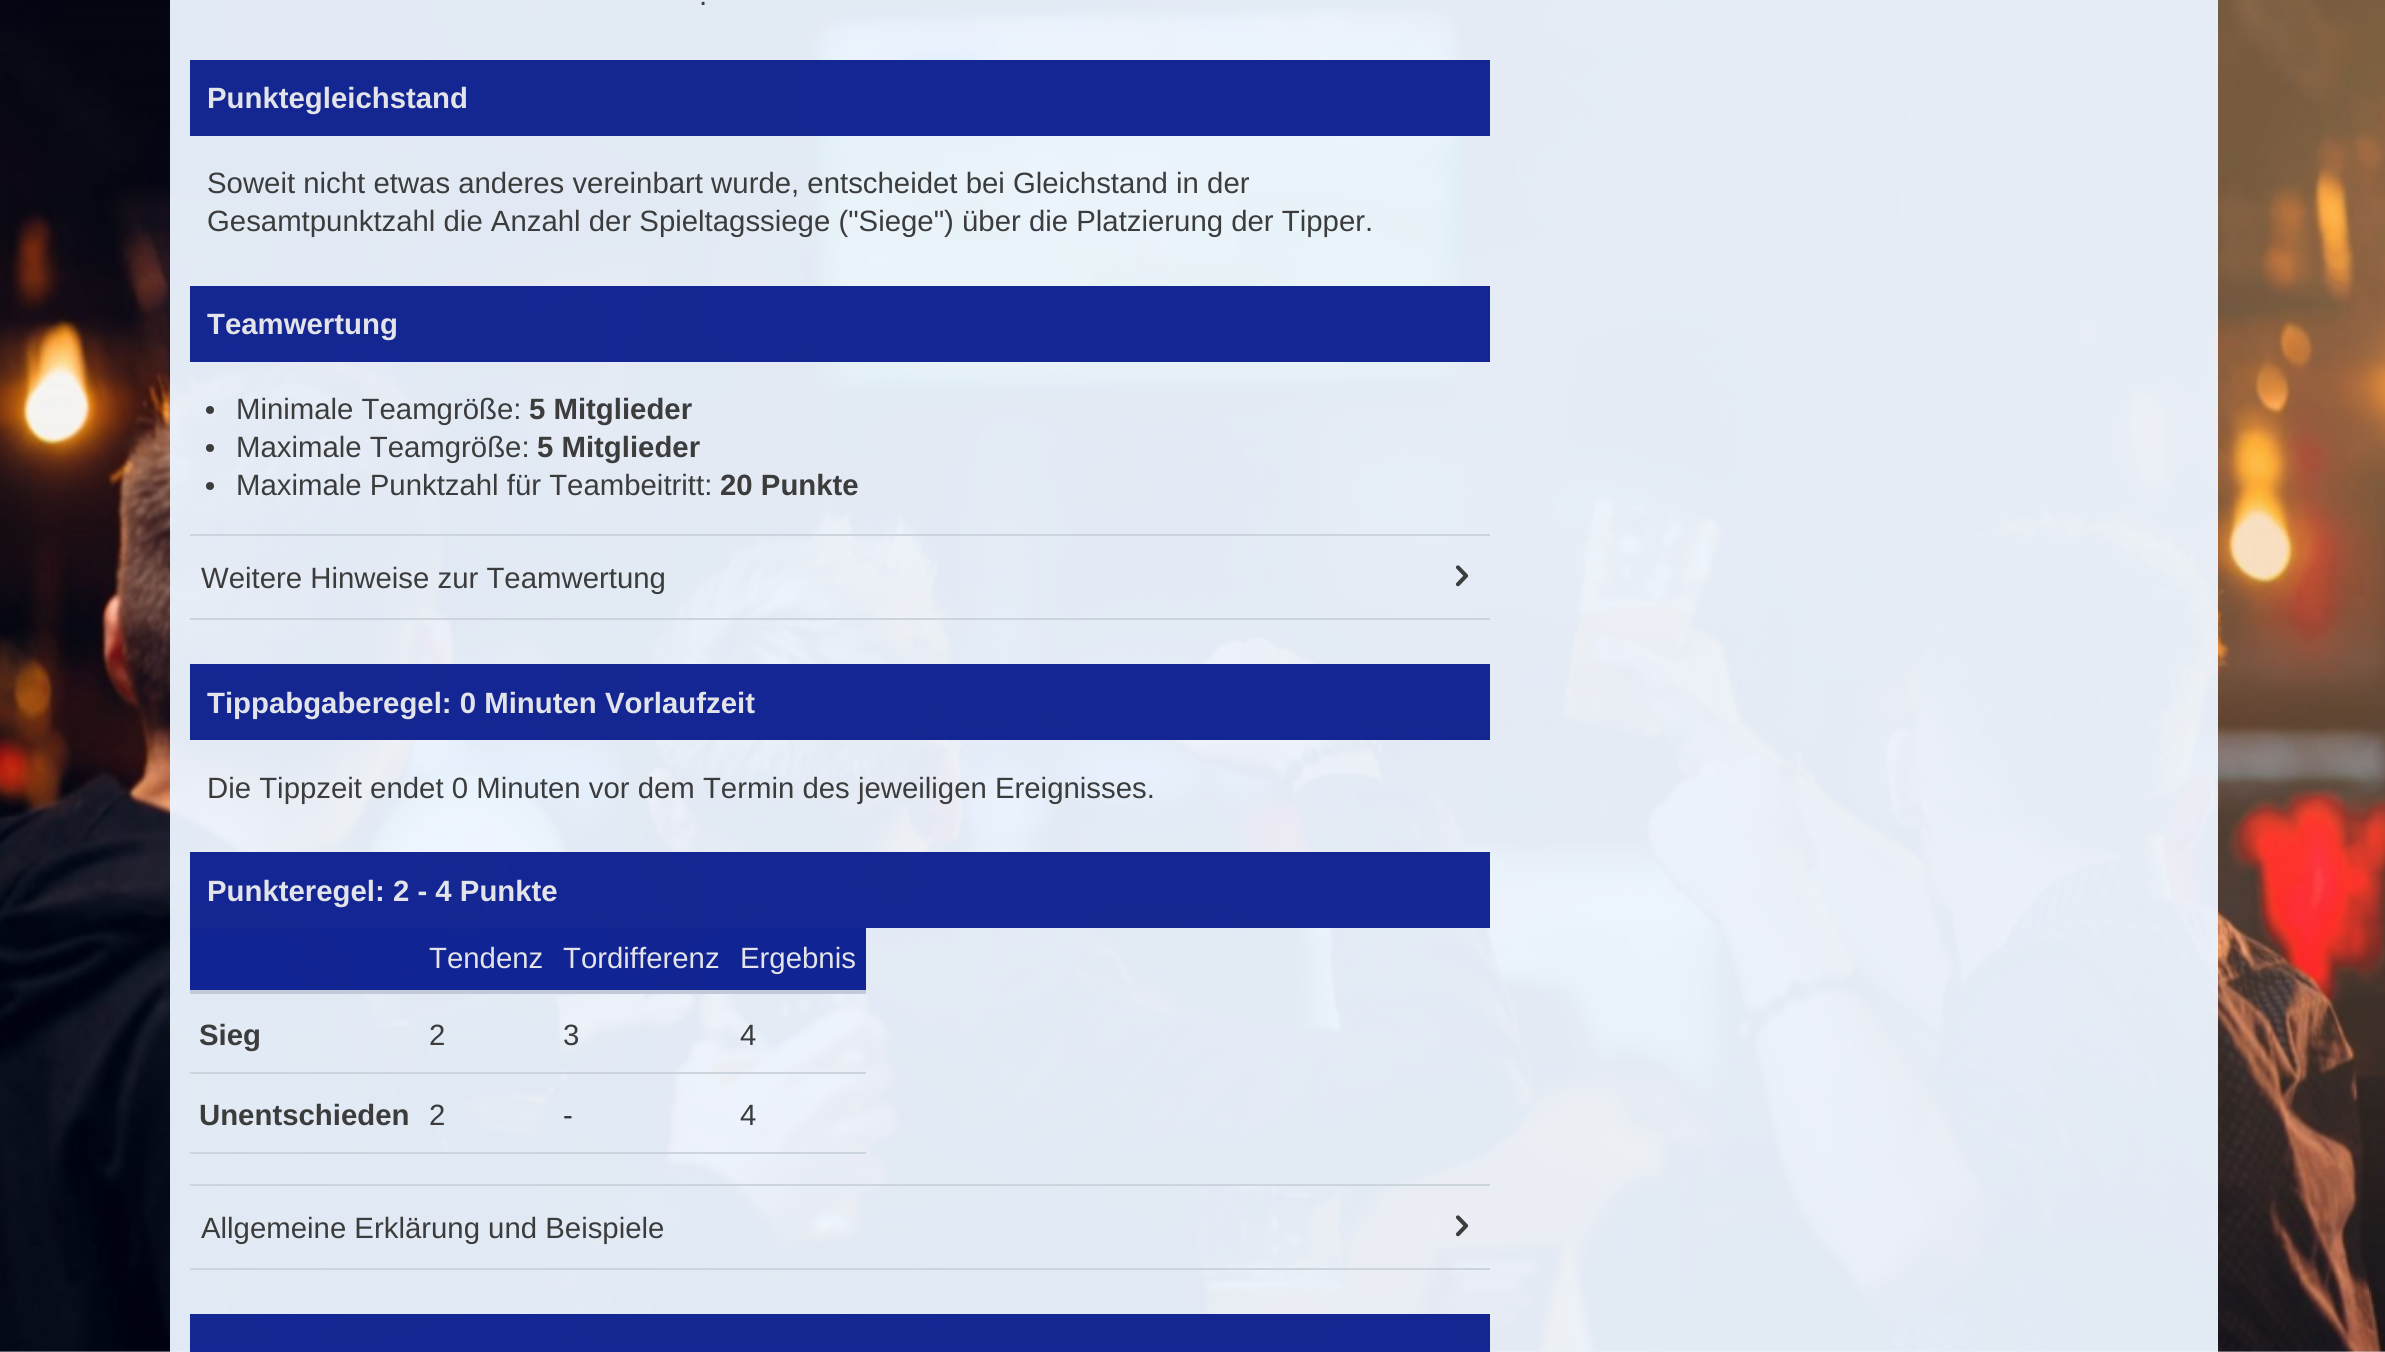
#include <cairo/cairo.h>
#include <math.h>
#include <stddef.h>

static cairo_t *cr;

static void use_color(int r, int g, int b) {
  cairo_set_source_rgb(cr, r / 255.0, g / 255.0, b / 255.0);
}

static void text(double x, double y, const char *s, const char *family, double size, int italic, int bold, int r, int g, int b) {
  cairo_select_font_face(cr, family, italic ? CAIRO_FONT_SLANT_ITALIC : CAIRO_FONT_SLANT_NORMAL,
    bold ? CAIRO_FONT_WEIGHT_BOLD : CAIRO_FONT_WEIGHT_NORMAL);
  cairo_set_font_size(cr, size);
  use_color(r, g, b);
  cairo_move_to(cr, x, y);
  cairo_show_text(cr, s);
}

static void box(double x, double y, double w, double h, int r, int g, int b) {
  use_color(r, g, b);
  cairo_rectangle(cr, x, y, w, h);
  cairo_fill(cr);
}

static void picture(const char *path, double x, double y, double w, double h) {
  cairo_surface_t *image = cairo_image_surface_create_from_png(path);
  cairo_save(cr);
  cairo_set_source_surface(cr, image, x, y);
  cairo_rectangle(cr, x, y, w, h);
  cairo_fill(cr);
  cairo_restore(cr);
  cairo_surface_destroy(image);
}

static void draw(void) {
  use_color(237, 245, 255);
  cairo_paint(cr);
  picture("img_01.png", 0, 0, 2385, 1352);
  cairo_set_source_rgba(cr, 0.929, 0.961, 1, 0.95);
  cairo_rectangle(cr, 170, 0, 2048, 1352);
  cairo_fill(cr);
  cairo_set_source_rgba(cr, 0.039, 0.114, 0.557, 0.95);
  cairo_rectangle(cr, 190, 60, 1300, 76);
  cairo_fill(cr);
  cairo_rectangle(cr, 190, 286, 1300, 76);
  cairo_fill(cr);
  use_color(60, 60, 61);
  cairo_arc(cr, 210, 410, 4, 0, 2 * M_PI);
  cairo_fill(cr);
  cairo_arc(cr, 210, 448, 4, 0, 2 * M_PI);
  cairo_fill(cr);
  cairo_arc(cr, 210, 486, 4, 0, 2 * M_PI);
  cairo_fill(cr);
  cairo_set_source_rgba(cr, 0.796, 0.827, 0.867, 0.95);
  cairo_rectangle(cr, 190, 534, 1300, 2);
  cairo_fill(cr);
  cairo_rectangle(cr, 190, 618, 1300, 2);
  cairo_fill(cr);
  picture("img_02.png", 1455, 565, 14, 22);
  cairo_set_source_rgba(cr, 0.039, 0.114, 0.557, 0.95);
  cairo_rectangle(cr, 190, 664, 1300, 76);
  cairo_fill(cr);
  cairo_rectangle(cr, 190, 852, 1300, 76);
  cairo_fill(cr);
  cairo_set_source_rgba(cr, 0.027, 0.106, 0.557, 0.95);
  cairo_rectangle(cr, 190, 928, 230, 62);
  cairo_fill(cr);
  box(190, 990, 676, 4, 194, 202, 217);
  cairo_set_source_rgba(cr, 0.027, 0.106, 0.557, 0.95);
  cairo_rectangle(cr, 420, 928, 134, 62);
  cairo_fill(cr);
  cairo_rectangle(cr, 554, 928, 176, 62);
  cairo_fill(cr);
  cairo_rectangle(cr, 730, 928, 136, 62);
  cairo_fill(cr);
  box(190, 1072, 364, 2, 204, 212, 222);
  cairo_set_source_rgba(cr, 0.796, 0.827, 0.867, 0.95);
  cairo_rectangle(cr, 554, 1072, 176, 2);
  cairo_fill(cr);
  cairo_rectangle(cr, 730, 1072, 136, 2);
  cairo_fill(cr);
  box(190, 1152, 230, 2, 204, 212, 222);
  cairo_set_source_rgba(cr, 0.796, 0.827, 0.867, 0.95);
  cairo_rectangle(cr, 420, 1152, 134, 2);
  cairo_fill(cr);
  cairo_rectangle(cr, 554, 1152, 176, 2);
  cairo_fill(cr);
  cairo_rectangle(cr, 730, 1152, 136, 2);
  cairo_fill(cr);
  cairo_rectangle(cr, 190, 1184, 1300, 2);
  cairo_fill(cr);
  cairo_rectangle(cr, 190, 1268, 1300, 2);
  cairo_fill(cr);
  picture("img_03.png", 1455, 1215, 14, 22);
  cairo_set_source_rgba(cr, 0.039, 0.114, 0.557, 0.95);
  cairo_rectangle(cr, 190, 1314, 1300, 38);
  cairo_fill(cr);
  text(699, 5, ".", "Liberation Sans", 29.35, 0, 0, 60, 60, 61);
  text(207, 108, "Punktegleichstand", "Liberation Sans", 29.35, 0, 1, 227, 228, 233);
  text(207, 193, "Soweit nicht etwas anderes vereinbart wurde, entscheidet bei Gleichstand in der", "Liberation Sans", 29.35, 0, 0, 60, 60, 61);
  text(207, 231, "Gesamtpunktzahl die Anzahl der Spieltagssiege (\"Siege\") über die Platzierung der Tipper.", "Liberation Sans", 29.35, 0, 0, 60, 60, 61);
  text(207, 334, "Teamwertung", "Liberation Sans", 29.35, 0, 1, 227, 228, 233);
  text(236, 419, "Minimale Teamgröße:", "Liberation Sans", 29.35, 0, 0, 60, 60, 61);
  text(529, 419, "5 Mitglieder", "Liberation Sans", 29.35, 0, 1, 60, 60, 61);
  text(236, 457, "Maximale Teamgröße:", "Liberation Sans", 29.35, 0, 0, 60, 60, 61);
  text(537, 457, "5 Mitglieder", "Liberation Sans", 29.35, 0, 1, 60, 60, 61);
  text(236, 495, "Maximale Punktzahl für Teambeitritt:", "Liberation Sans", 29.35, 0, 0, 60, 60, 61);
  text(720, 495, "20 Punkte", "Liberation Sans", 29.35, 0, 1, 60, 60, 61);
  text(201, 588, "Weitere Hinweise zur Teamwertung", "Liberation Sans", 29.35, 0, 0, 60, 60, 61);
  text(207, 713, "Tippabgaberegel: 0 Minuten Vorlaufzeit", "Liberation Sans", 29.35, 0, 1, 227, 228, 233);
  text(207, 798, "Die Tippzeit endet 0 Minuten vor dem Termin des jeweiligen Ereignisses.", "Liberation Sans", 29.35, 0, 0, 60, 60, 61);
  text(207, 901, "Punkteregel: 2 - 4 Punkte", "Liberation Sans", 29.35, 0, 1, 227, 228, 233);
  text(429, 968, "Tendenz", "Liberation Sans", 29.35, 0, 0, 227, 228, 233);
  text(563, 968, "Tordifferenz", "Liberation Sans", 29.35, 0, 0, 227, 228, 233);
  text(740, 968, "Ergebnis", "Liberation Sans", 29.35, 0, 0, 227, 228, 233);
  text(199, 1045, "Sieg", "Liberation Sans", 29.35, 0, 1, 60, 60, 61);
  text(429, 1045, "2", "Liberation Sans", 29.35, 0, 0, 60, 60, 61);
  text(563, 1045, "3", "Liberation Sans", 29.35, 0, 0, 60, 60, 61);
  text(740, 1045, "4", "Liberation Sans", 29.35, 0, 0, 60, 60, 61);
  text(199, 1125, "Unentschieden", "Liberation Sans", 29.35, 0, 1, 60, 60, 61);
  text(429, 1125, "2", "Liberation Sans", 29.35, 0, 0, 60, 60, 61);
  text(563, 1125, "-", "Liberation Sans", 29.35, 0, 0, 50, 50, 50);
  text(740, 1125, "4", "Liberation Sans", 29.35, 0, 0, 60, 60, 61);
  text(201, 1238, "Allgemeine Erklärung und Beispiele", "Liberation Sans", 29.35, 0, 0, 60, 60, 61);
}

int main(void) {
  cairo_surface_t *surface = cairo_image_surface_create(CAIRO_FORMAT_RGB24, 2385, 1352);
  cr = cairo_create(surface);
  cairo_font_options_t *options = cairo_font_options_create();
  cairo_font_options_set_hint_metrics(options, CAIRO_HINT_METRICS_OFF);
  cairo_font_options_set_hint_style(options, CAIRO_HINT_STYLE_NONE);
  cairo_set_font_options(cr, options);
  cairo_set_miter_limit(cr, 4);
  draw();
  cairo_surface_write_to_png(surface, "out.png");
  cairo_font_options_destroy(options);
  cairo_destroy(cr);
  cairo_surface_destroy(surface);
  return 0;
}
